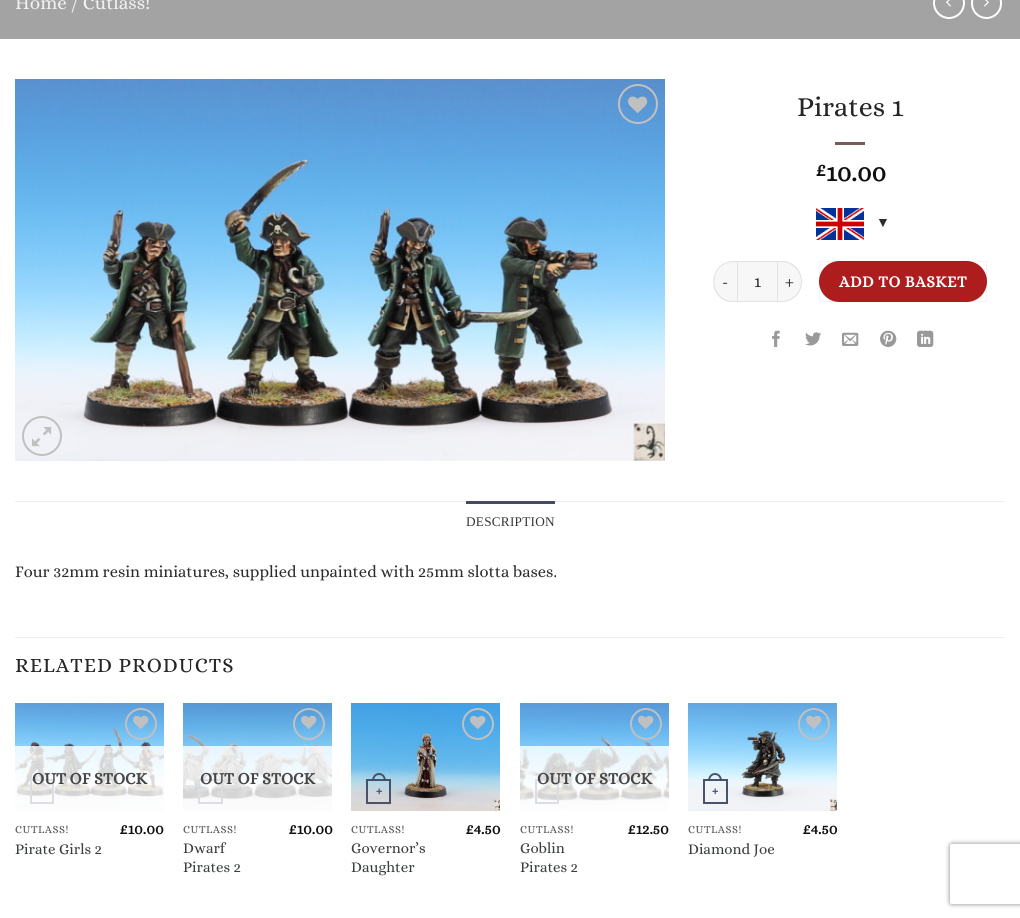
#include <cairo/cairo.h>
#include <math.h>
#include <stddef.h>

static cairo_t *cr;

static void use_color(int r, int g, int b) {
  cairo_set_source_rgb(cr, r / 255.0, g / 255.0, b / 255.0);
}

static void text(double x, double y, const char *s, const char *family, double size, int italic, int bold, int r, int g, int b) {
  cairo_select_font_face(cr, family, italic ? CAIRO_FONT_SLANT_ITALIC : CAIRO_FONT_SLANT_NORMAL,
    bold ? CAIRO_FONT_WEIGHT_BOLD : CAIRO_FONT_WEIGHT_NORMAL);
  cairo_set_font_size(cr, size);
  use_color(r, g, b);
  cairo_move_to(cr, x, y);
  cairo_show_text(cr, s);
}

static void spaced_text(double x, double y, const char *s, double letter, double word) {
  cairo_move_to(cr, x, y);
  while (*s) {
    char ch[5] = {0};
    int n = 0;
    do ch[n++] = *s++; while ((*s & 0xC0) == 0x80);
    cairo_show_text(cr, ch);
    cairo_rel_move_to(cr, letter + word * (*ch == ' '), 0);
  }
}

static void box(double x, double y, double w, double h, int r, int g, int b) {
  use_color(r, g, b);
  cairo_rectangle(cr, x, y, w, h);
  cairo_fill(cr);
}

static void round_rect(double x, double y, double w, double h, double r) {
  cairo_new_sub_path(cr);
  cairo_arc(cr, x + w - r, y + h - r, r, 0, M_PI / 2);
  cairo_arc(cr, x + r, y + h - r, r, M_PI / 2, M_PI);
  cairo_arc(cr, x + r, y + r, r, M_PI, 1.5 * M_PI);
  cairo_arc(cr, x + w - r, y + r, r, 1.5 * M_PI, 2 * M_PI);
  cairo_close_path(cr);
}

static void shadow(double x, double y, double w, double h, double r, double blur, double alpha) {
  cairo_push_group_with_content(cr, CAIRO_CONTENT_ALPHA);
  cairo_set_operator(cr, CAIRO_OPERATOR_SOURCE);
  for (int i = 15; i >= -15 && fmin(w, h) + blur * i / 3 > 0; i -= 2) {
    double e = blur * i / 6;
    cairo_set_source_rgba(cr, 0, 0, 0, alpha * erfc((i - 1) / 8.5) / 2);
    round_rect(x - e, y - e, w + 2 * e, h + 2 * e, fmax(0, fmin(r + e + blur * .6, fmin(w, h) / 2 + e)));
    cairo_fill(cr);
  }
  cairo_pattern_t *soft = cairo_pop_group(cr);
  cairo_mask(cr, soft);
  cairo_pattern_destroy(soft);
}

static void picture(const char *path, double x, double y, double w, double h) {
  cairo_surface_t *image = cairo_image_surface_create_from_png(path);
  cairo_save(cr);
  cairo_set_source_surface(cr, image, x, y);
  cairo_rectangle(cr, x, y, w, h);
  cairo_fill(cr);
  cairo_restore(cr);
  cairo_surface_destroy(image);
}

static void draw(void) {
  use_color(163, 163, 163);
  cairo_paint(cr);
  cairo_arc(cr, 949, 3, 15, 0, 2 * M_PI);
  use_color(255, 255, 255);
  cairo_stroke(cr);
  picture("img_01.png", 946, 0, 5, 7);
  round_rect(972, -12, 29, 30, 14.5);
  cairo_stroke(cr);
  picture("img_02.png", 984, 0, 5, 7);
  box(0, 39, 1020, 879, 255, 255, 255);
  picture("img_03.png", 15, 79, 650, 382);
  cairo_arc(cr, 638, 104, 19, 0, 2 * M_PI);
  use_color(192, 192, 192);
  cairo_stroke(cr);
  picture("img_04.png", 628, 96, 20, 17);
  cairo_arc(cr, 42, 436, 19, 0, 2 * M_PI);
  cairo_stroke(cr);
  picture("img_05.png", 32, 427, 20, 20);
  box(835, 142, 30, 3, 119, 90, 90);
  picture("img_06.png", 816, 208, 48, 32);
  use_color(247, 247, 247);
  cairo_new_path(cr);
  cairo_move_to(cr, 733.5, 261);
  cairo_line_to(cr, 737, 261);
  cairo_line_to(cr, 737, 302);
  cairo_line_to(cr, 733.5, 302);
  cairo_curve_to(cr, 722, 302, 713, 293, 713, 281.5);
  cairo_curve_to(cr, 713, 270, 722, 261, 733.5, 261);
  cairo_close_path(cr);
  cairo_fill(cr);
  cairo_set_source_rgba(cr, 0, 0, 0, 0.09);
  cairo_set_fill_rule(cr, CAIRO_FILL_RULE_EVEN_ODD);
  cairo_new_path(cr);
  cairo_move_to(cr, 734, 261);
  cairo_line_to(cr, 737, 261);
  cairo_line_to(cr, 737, 302);
  cairo_line_to(cr, 729, 302);
  cairo_curve_to(cr, 706, 297, 709, 261, 734, 261);
  cairo_close_path(cr);
  cairo_move_to(cr, 734, 262);
  cairo_line_to(cr, 737, 262);
  cairo_line_to(cr, 737, 301);
  cairo_line_to(cr, 730, 301);
  cairo_curve_to(cr, 707, 296, 710, 262, 734, 262);
  cairo_close_path(cr);
  cairo_fill(cr);
  use_color(247, 247, 247);
  cairo_rectangle(cr, 737.5, 261.5, 40, 40);
  cairo_fill_preserve(cr);
  use_color(225, 225, 225);
  cairo_set_line_width(cr, 1);
  cairo_stroke(cr);
  use_color(247, 247, 247);
  cairo_new_path(cr);
  cairo_move_to(cr, 778, 261);
  cairo_line_to(cr, 781.5, 261);
  cairo_curve_to(cr, 793, 261, 802, 270, 802, 281.5);
  cairo_curve_to(cr, 802, 293, 793, 302, 781.5, 302);
  cairo_line_to(cr, 778, 302);
  cairo_close_path(cr);
  cairo_fill(cr);
  cairo_set_source_rgba(cr, 0, 0, 0, 0.09);
  cairo_new_path(cr);
  cairo_move_to(cr, 778, 261);
  cairo_line_to(cr, 782, 261);
  cairo_curve_to(cr, 793, 261, 802, 270, 802, 282);
  cairo_curve_to(cr, 802, 293, 793, 302, 782, 302);
  cairo_line_to(cr, 778, 302);
  cairo_close_path(cr);
  cairo_move_to(cr, 778, 262);
  cairo_line_to(cr, 782, 262);
  cairo_curve_to(cr, 792, 262, 801, 271, 801, 282);
  cairo_curve_to(cr, 801, 292, 792, 301, 782, 301);
  cairo_line_to(cr, 778, 301);
  cairo_close_path(cr);
  cairo_fill(cr);
  use_color(174, 29, 29);
  round_rect(819, 261, 168, 41, 20.5);
  cairo_fill(cr);
  cairo_rectangle(cr, 819.5, 261.5, 167, 40);
  cairo_set_source_rgba(cr, 0, 0, 0, 0.05);
  cairo_stroke(cr);
  picture("img_07.png", 772, 330, 8, 17);
  picture("img_08.png", 805, 332, 16, 14);
  picture("img_09.png", 842, 332, 17, 14);
  picture("img_10.png", 880, 330, 17, 17);
  picture("img_11.png", 917, 330, 17, 17);
  box(15, 501, 990, 1, 236, 236, 236);
  box(466, 501, 89, 3, 68, 75, 100);
  box(15, 637, 990, 1, 236, 236, 236);
  picture("img_12.png", 15, 703, 149, 108);
  cairo_arc(cr, 141, 724, 15, 0, 2 * M_PI);
  use_color(192, 192, 192);
  cairo_set_line_width(cr, 2);
  cairo_stroke(cr);
  picture("img_13.png", 133, 715, 16, 14);
  cairo_rectangle(cr, 31, 780, 22, 23);
  cairo_set_source_rgba(cr, 0.267, 0.294, 0.392, 0.95);
  cairo_stroke(cr);
  cairo_new_path(cr);
  cairo_move_to(cr, 42, 773);
  cairo_curve_to(cr, 46.5, 773, 49, 777, 49, 781);
  cairo_line_to(cr, 35, 781);
  cairo_curve_to(cr, 35, 777, 37.5, 773, 42, 773);
  cairo_close_path(cr);
  cairo_move_to(cr, 42, 775);
  cairo_curve_to(cr, 45.5, 775, 47, 778, 47, 781);
  cairo_line_to(cr, 37, 781);
  cairo_curve_to(cr, 37, 778, 38.5, 775, 42, 775);
  cairo_close_path(cr);
  cairo_fill(cr);
  cairo_set_source_rgba(cr, 1, 1, 1, 0.81);
  cairo_rectangle(cr, 15, 746, 149, 65);
  cairo_fill(cr);
  picture("img_14.png", 183, 703, 149, 108);
  cairo_arc(cr, 309, 724, 15, 0, 2 * M_PI);
  use_color(192, 192, 192);
  cairo_stroke(cr);
  picture("img_15.png", 301, 715, 16, 14);
  cairo_rectangle(cr, 199, 780, 23, 23);
  cairo_set_source_rgba(cr, 0.267, 0.294, 0.392, 0.95);
  cairo_stroke(cr);
  cairo_new_path(cr);
  cairo_move_to(cr, 210, 773);
  cairo_curve_to(cr, 214.5, 773, 217, 777, 217, 781);
  cairo_line_to(cr, 203, 781);
  cairo_curve_to(cr, 203, 777, 205.5, 773, 210, 773);
  cairo_close_path(cr);
  cairo_move_to(cr, 210, 775);
  cairo_curve_to(cr, 213.5, 775, 215, 778, 215, 781);
  cairo_line_to(cr, 205, 781);
  cairo_curve_to(cr, 205, 778, 206.5, 775, 210, 775);
  cairo_close_path(cr);
  cairo_fill(cr);
  cairo_set_source_rgba(cr, 1, 1, 1, 0.81);
  cairo_rectangle(cr, 183, 746, 149, 65);
  cairo_fill(cr);
  picture("img_16.png", 351, 703, 149, 108);
  cairo_arc(cr, 478, 724, 15, 0, 2 * M_PI);
  use_color(192, 192, 192);
  cairo_stroke(cr);
  picture("img_17.png", 470, 715, 16, 14);
  cairo_rectangle(cr, 367, 780, 23, 23);
  cairo_set_source_rgba(cr, 0.267, 0.294, 0.392, 0.95);
  cairo_stroke(cr);
  cairo_new_path(cr);
  cairo_move_to(cr, 379, 773);
  cairo_curve_to(cr, 383.5, 773, 386, 777, 386, 781);
  cairo_line_to(cr, 372, 781);
  cairo_curve_to(cr, 372, 777, 374.5, 773, 379, 773);
  cairo_close_path(cr);
  cairo_move_to(cr, 379, 775);
  cairo_curve_to(cr, 382.5, 775, 384, 778, 384, 781);
  cairo_line_to(cr, 374, 781);
  cairo_curve_to(cr, 374, 778, 375.5, 775, 379, 775);
  cairo_close_path(cr);
  cairo_fill(cr);
  picture("img_18.png", 520, 703, 149, 108);
  cairo_arc(cr, 646, 724, 15, 0, 2 * M_PI);
  use_color(192, 192, 192);
  cairo_stroke(cr);
  picture("img_19.png", 638, 715, 16, 14);
  cairo_rectangle(cr, 536, 780, 22, 23);
  cairo_set_source_rgba(cr, 0.267, 0.294, 0.392, 0.95);
  cairo_stroke(cr);
  cairo_new_path(cr);
  cairo_move_to(cr, 547, 773);
  cairo_curve_to(cr, 551.5, 773, 554, 777, 554, 781);
  cairo_line_to(cr, 540, 781);
  cairo_curve_to(cr, 540, 777, 542.5, 773, 547, 773);
  cairo_close_path(cr);
  cairo_move_to(cr, 547, 775);
  cairo_curve_to(cr, 550.5, 775, 552, 778, 552, 781);
  cairo_line_to(cr, 542, 781);
  cairo_curve_to(cr, 542, 778, 543.5, 775, 547, 775);
  cairo_close_path(cr);
  cairo_fill(cr);
  cairo_set_source_rgba(cr, 1, 1, 1, 0.81);
  cairo_rectangle(cr, 520, 746, 149, 65);
  cairo_fill(cr);
  picture("img_20.png", 688, 703, 149, 108);
  cairo_arc(cr, 814, 724, 15, 0, 2 * M_PI);
  use_color(192, 192, 192);
  cairo_stroke(cr);
  picture("img_21.png", 806, 715, 16, 14);
  cairo_rectangle(cr, 704, 780, 23, 23);
  cairo_set_source_rgba(cr, 0.267, 0.294, 0.392, 0.95);
  cairo_stroke(cr);
  cairo_new_path(cr);
  cairo_move_to(cr, 715, 773);
  cairo_curve_to(cr, 719.5, 773, 722, 777, 722, 781);
  cairo_line_to(cr, 708, 781);
  cairo_curve_to(cr, 708, 777, 710.5, 773, 715, 773);
  cairo_close_path(cr);
  cairo_move_to(cr, 715, 775);
  cairo_curve_to(cr, 718.5, 775, 720, 778, 720, 781);
  cairo_line_to(cr, 710, 781);
  cairo_curve_to(cr, 710, 778, 711.5, 775, 715, 775);
  cairo_close_path(cr);
  cairo_fill(cr);
  cairo_save(cr);
  cairo_new_path(cr);
  cairo_move_to(cr, 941, 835);
  cairo_line_to(cr, 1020, 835);
  cairo_line_to(cr, 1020, 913);
  cairo_line_to(cr, 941, 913);
  cairo_close_path(cr);
  cairo_move_to(cr, 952, 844);
  cairo_line_to(cr, 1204, 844);
  cairo_curve_to(cr, 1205, 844, 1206, 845, 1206, 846);
  cairo_line_to(cr, 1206, 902);
  cairo_curve_to(cr, 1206, 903, 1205, 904, 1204, 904);
  cairo_line_to(cr, 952, 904);
  cairo_curve_to(cr, 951, 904, 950, 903, 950, 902);
  cairo_line_to(cr, 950, 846);
  cairo_curve_to(cr, 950, 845, 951, 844, 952, 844);
  cairo_close_path(cr);
  cairo_clip(cr);
  use_color(128, 128, 128);
  shadow(950, 844, 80, 60, 2, 2.5, 1);
  cairo_restore(cr);
  text(15, 9, "Home / Cutlass!", "Alice", 19, 0, 0, 241, 241, 241);
  text(797, 116, "Pirates 1", "Alice", 28, 0, 0, 38, 38, 38);
  text(815, 176, "£", "Alice", 19, 0, 1, 17, 17, 17);
  text(826, 181, "10.00", "Alice", 25, 0, 1, 17, 17, 17);
  text(876, 227, "▼", "Liberation Sans", 14, 0, 0, 45, 45, 45);
  cairo_select_font_face(cr, "Alice", CAIRO_FONT_SLANT_NORMAL, CAIRO_FONT_WEIGHT_NORMAL);
  cairo_set_font_size(cr, 16);
  spaced_text(722, 287, "-", 0.5, 0);
  text(754, 287, "1", "Alice", 16.5, 0, 0, 45, 45, 45);
  cairo_set_font_size(cr, 16);
  spaced_text(785, 287, "+", 0.5, 0);
  cairo_select_font_face(cr, "Alice", CAIRO_FONT_SLANT_NORMAL, CAIRO_FONT_WEIGHT_BOLD);
  use_color(255, 255, 255);
  spaced_text(839, 287, "ADD TO BASKET", 0.5, 0);
  cairo_select_font_face(cr, "Liberation Serif", CAIRO_FONT_SLANT_NORMAL, CAIRO_FONT_WEIGHT_NORMAL);
  cairo_set_font_size(cr, 13.25);
  use_color(54, 54, 54);
  spaced_text(466, 526, "DESCRIPTION", 0.25, 0);
  text(15, 577, "Four 32mm resin miniatures, supplied unpainted with 25mm slotta bases.", "Alice", 16.5, 0, 0, 45, 45, 45);
  cairo_set_font_size(cr, 20.6);
  use_color(38, 38, 38);
  spaced_text(15, 672, "RELATED PRODUCTS", 1, 0);
  text(32, 784, "OUT OF STOCK", "Alice", 16.5, 0, 1, 70, 70, 70);
  cairo_select_font_face(cr, "Alice", CAIRO_FONT_SLANT_NORMAL, CAIRO_FONT_WEIGHT_NORMAL);
  cairo_set_font_size(cr, 11);
  use_color(87, 87, 87);
  spaced_text(15, 833, "CUTLASS!", 0.5, 0);
  text(15, 854, "Pirate Girls 2", "Alice", 15, 0, 0, 59, 62, 62);
  text(119, 834, "£10.00", "Alice", 15, 0, 1, 17, 17, 17);
  text(200, 784, "OUT OF STOCK", "Alice", 16.5, 0, 1, 70, 70, 70);
  cairo_select_font_face(cr, "Alice", CAIRO_FONT_SLANT_NORMAL, CAIRO_FONT_WEIGHT_NORMAL);
  cairo_set_font_size(cr, 11);
  use_color(87, 87, 87);
  spaced_text(183, 833, "CUTLASS!", 0.5, 0);
  text(183, 853, "Dwarf", "Alice", 15, 0, 0, 59, 62, 62);
  text(183, 872, "Pirates 2", "Alice", 15, 0, 0, 59, 62, 62);
  text(288, 834, "£10.00", "Alice", 15, 0, 1, 17, 17, 17);
  text(376, 795, "+", "Liberation Sans", 11, 0, 1, 75, 82, 106);
  cairo_select_font_face(cr, "Alice", CAIRO_FONT_SLANT_NORMAL, CAIRO_FONT_WEIGHT_NORMAL);
  use_color(87, 87, 87);
  spaced_text(351, 833, "CUTLASS!", 0.5, 0);
  text(351, 853, "Governor’s", "Alice", 15, 0, 0, 59, 62, 62);
  text(351, 872, "Daughter", "Alice", 15, 0, 0, 59, 62, 62);
  text(465, 834, "£4.50", "Alice", 15, 0, 1, 17, 17, 17);
  text(537, 784, "OUT OF STOCK", "Alice", 16.5, 0, 1, 70, 70, 70);
  cairo_select_font_face(cr, "Alice", CAIRO_FONT_SLANT_NORMAL, CAIRO_FONT_WEIGHT_NORMAL);
  cairo_set_font_size(cr, 11);
  use_color(87, 87, 87);
  spaced_text(520, 833, "CUTLASS!", 0.5, 0);
  text(520, 853, "Goblin", "Alice", 15, 0, 0, 59, 62, 62);
  text(520, 872, "Pirates 2", "Alice", 15, 0, 0, 59, 62, 62);
  text(627, 834, "£12.50", "Alice", 15, 0, 1, 17, 17, 17);
  text(712, 795, "+", "Liberation Sans", 11, 0, 1, 75, 82, 106);
  cairo_select_font_face(cr, "Alice", CAIRO_FONT_SLANT_NORMAL, CAIRO_FONT_WEIGHT_NORMAL);
  use_color(87, 87, 87);
  spaced_text(688, 833, "CUTLASS!", 0.5, 0);
  text(688, 854, "Diamond Joe", "Alice", 15, 0, 0, 59, 62, 62);
  text(802, 834, "£4.50", "Alice", 15, 0, 1, 17, 17, 17);
}

int main(void) {
  cairo_surface_t *surface = cairo_image_surface_create(CAIRO_FORMAT_RGB24, 1020, 918);
  cr = cairo_create(surface);
  cairo_font_options_t *options = cairo_font_options_create();
  cairo_font_options_set_hint_metrics(options, CAIRO_HINT_METRICS_OFF);
  cairo_font_options_set_hint_style(options, CAIRO_HINT_STYLE_NONE);
  cairo_set_font_options(cr, options);
  cairo_set_miter_limit(cr, 4);
  draw();
  cairo_surface_write_to_png(surface, "out.png");
  cairo_font_options_destroy(options);
  cairo_destroy(cr);
  cairo_surface_destroy(surface);
  return 0;
}
